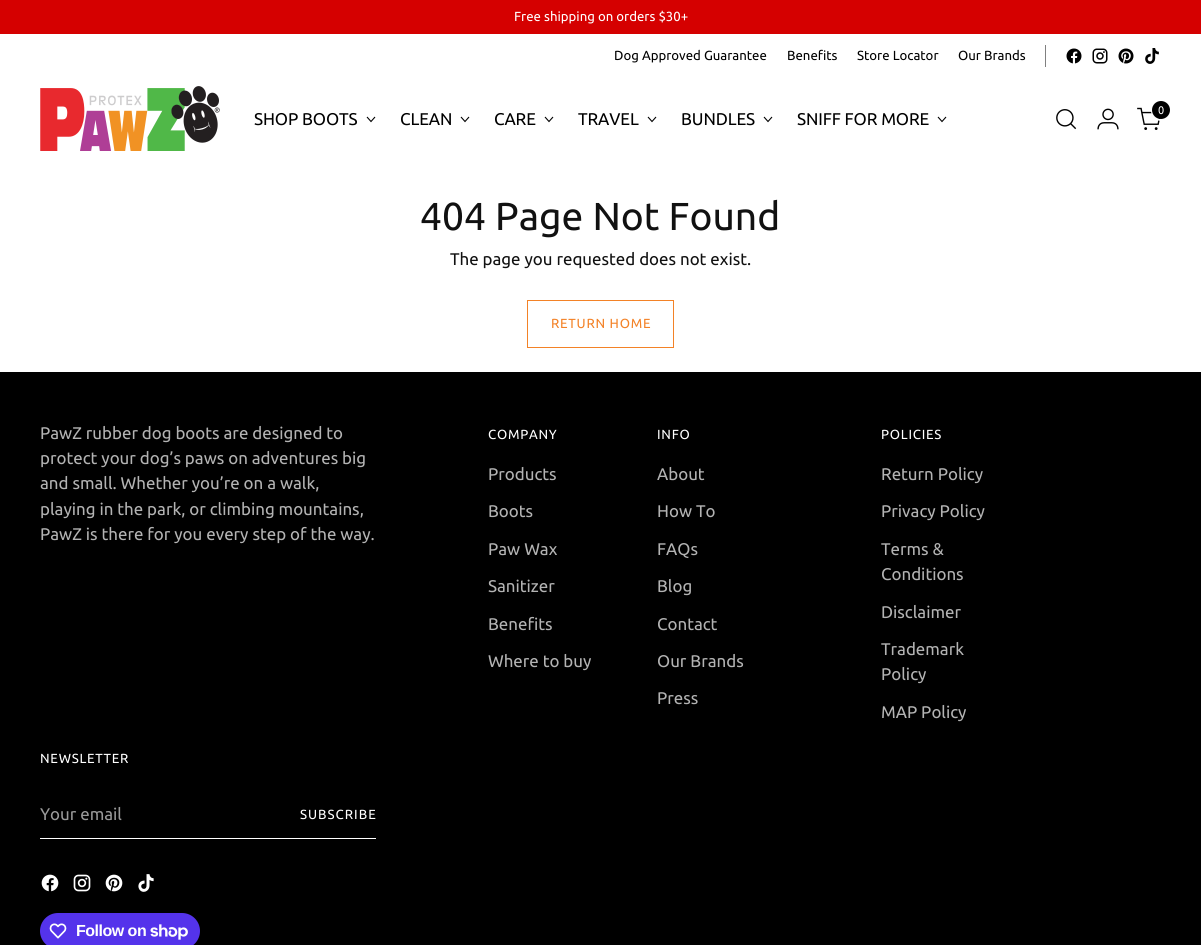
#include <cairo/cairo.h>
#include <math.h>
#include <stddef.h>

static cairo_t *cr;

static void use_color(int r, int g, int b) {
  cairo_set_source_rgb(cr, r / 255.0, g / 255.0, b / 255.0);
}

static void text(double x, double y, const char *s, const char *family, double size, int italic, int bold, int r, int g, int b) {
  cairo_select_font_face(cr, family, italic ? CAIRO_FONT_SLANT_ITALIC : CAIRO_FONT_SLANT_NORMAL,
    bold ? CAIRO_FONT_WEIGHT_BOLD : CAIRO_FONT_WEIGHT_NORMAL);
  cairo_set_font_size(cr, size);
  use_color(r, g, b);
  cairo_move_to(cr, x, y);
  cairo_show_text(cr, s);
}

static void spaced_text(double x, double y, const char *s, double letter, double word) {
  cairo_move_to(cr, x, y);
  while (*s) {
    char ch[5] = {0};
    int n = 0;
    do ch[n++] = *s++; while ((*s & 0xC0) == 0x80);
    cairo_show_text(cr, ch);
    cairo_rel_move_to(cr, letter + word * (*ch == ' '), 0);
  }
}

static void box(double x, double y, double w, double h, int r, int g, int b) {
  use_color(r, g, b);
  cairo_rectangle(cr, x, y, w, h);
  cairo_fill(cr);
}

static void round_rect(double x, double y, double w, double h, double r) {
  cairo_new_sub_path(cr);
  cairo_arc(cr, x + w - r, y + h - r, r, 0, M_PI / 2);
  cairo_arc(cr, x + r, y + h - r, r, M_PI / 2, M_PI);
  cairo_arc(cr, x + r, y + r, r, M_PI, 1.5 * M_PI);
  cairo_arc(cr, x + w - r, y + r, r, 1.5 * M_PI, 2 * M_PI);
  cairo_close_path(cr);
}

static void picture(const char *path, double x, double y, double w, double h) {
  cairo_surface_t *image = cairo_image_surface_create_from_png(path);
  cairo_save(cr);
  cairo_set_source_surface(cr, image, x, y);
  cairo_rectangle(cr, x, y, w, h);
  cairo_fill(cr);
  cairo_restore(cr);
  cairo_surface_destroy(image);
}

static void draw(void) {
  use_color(255, 255, 255);
  cairo_paint(cr);
  box(0, 0, 1201, 34, 213, 0, 0);
  box(1045, 45, 1, 22, 128, 128, 128);
  picture("img_01.png", 1066, 48, 16, 16);
  picture("img_02.png", 1092, 48, 16, 16);
  picture("img_03.png", 1118, 48, 16, 16);
  picture("img_04.png", 1145, 48, 14, 16);
  picture("img_05.png", 40, 86, 180, 65);
  picture("img_06.png", 1056, 109, 21, 21);
  picture("img_07.png", 1097, 108, 22, 22);
  picture("img_08.png", 1137, 107, 24, 23);
  cairo_arc(cr, 1161.5, 110.5, 9.5, 0, 2 * M_PI);
  use_color(255, 255, 255);
  cairo_stroke(cr);
  use_color(0, 0, 0);
  cairo_arc(cr, 1161, 110, 9, 0, 2 * M_PI);
  cairo_fill(cr);
  cairo_new_path(cr);
  cairo_move_to(cr, 367, 117);
  cairo_line_to(cr, 371, 121.5);
  cairo_line_to(cr, 375, 117);
  cairo_set_line_width(cr, 1.1);
  cairo_stroke(cr);
  cairo_new_path(cr);
  cairo_move_to(cr, 461, 117);
  cairo_line_to(cr, 465, 121.5);
  cairo_line_to(cr, 469, 117);
  cairo_stroke(cr);
  cairo_new_path(cr);
  cairo_move_to(cr, 545, 117);
  cairo_line_to(cr, 549, 121.5);
  cairo_line_to(cr, 553, 117);
  cairo_stroke(cr);
  cairo_new_path(cr);
  cairo_move_to(cr, 648, 117);
  cairo_line_to(cr, 652, 121.5);
  cairo_line_to(cr, 656, 117);
  cairo_stroke(cr);
  cairo_new_path(cr);
  cairo_move_to(cr, 764, 117);
  cairo_line_to(cr, 768, 121.5);
  cairo_line_to(cr, 772, 117);
  cairo_stroke(cr);
  cairo_new_path(cr);
  cairo_move_to(cr, 938, 117);
  cairo_line_to(cr, 942, 121.5);
  cairo_line_to(cr, 946, 117);
  cairo_stroke(cr);
  cairo_rectangle(cr, 527.5, 300.5, 146, 47);
  use_color(243, 130, 39);
  cairo_set_line_width(cr, 1);
  cairo_stroke(cr);
  box(0, 372, 1201, 573, 0, 0, 0);
  box(40, 838, 336, 1, 255, 255, 255);
  picture("img_09.png", 41, 874, 18, 18);
  picture("img_10.png", 73, 874, 18, 18);
  picture("img_11.png", 105, 874, 18, 18);
  picture("img_12.png", 138, 874, 16, 18);
  use_color(84, 51, 235);
  round_rect(40, 913, 160, 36, 18);
  cairo_fill(cr);
  picture("img_13.png", 49, 923, 18, 16);
  picture("img_14.png", 150, 924, 38, 16);
  text(514, 21, "Free shipping on orders $30+", "Ubuntu", 13.2, 0, 0, 255, 255, 255);
  text(614, 60, "Dog Approved Guarantee", "Ubuntu", 13.2, 0, 0, 0, 0, 0);
  text(787, 60, "Benefits", "Ubuntu", 13.2, 0, 0, 0, 0, 0);
  text(857, 60, "Store Locator", "Ubuntu", 13.2, 0, 0, 0, 0, 0);
  text(958, 60, "Our Brands", "Ubuntu", 13.2, 0, 0, 0, 0, 0);
  text(1158, 114, "0", "Ubuntu", 11, 0, 0, 255, 255, 255);
  cairo_set_font_size(cr, 17);
  use_color(0, 0, 0);
  spaced_text(254, 125, "SHOP BOOTS", -0.1, 0);
  spaced_text(400, 125, "CLEAN", -0.1, 0);
  spaced_text(494, 125, "CARE", -0.1, 0);
  spaced_text(578, 125, "TRAVEL", -0.1, 0);
  spaced_text(681, 125, "BUNDLES", -0.1, 0);
  spaced_text(797, 125, "SNIFF FOR MORE", -0.1, 0);
  text(420, 230, "404 Page Not Found", "Ubuntu", 39, 0, 0, 17, 17, 17);
  text(450, 265, "The page you requested does not exist.", "Ubuntu", 16.9, 0, 0, 17, 17, 17);
  cairo_set_font_size(cr, 13.2);
  use_color(243, 130, 39);
  spaced_text(551, 328, "RETURN HOME", 0.75, 0);
  text(40, 439, "PawZ rubber dog boots are designed to", "Ubuntu", 16.9, 0, 0, 179, 179, 179);
  text(40, 464, "protect your dog’s paws on adventures big", "Ubuntu", 16.9, 0, 0, 179, 179, 179);
  text(40, 489, "and small. Whether you’re on a walk,", "Ubuntu", 16.9, 0, 0, 179, 179, 179);
  text(40, 515, "playing in the park, or climbing mountains,", "Ubuntu", 16.9, 0, 0, 179, 179, 179);
  text(40, 540, "PawZ is there for you every step of the way.", "Ubuntu", 16.9, 0, 0, 179, 179, 179);
  cairo_set_font_size(cr, 13.2);
  use_color(255, 255, 255);
  spaced_text(488, 439, "COMPANY", 0.75, 0);
  text(488, 480, "Products", "Ubuntu", 16.9, 0, 0, 179, 179, 179);
  text(488, 517, "Boots", "Ubuntu", 16.9, 0, 0, 179, 179, 179);
  text(488, 555, "Paw Wax", "Ubuntu", 16.9, 0, 0, 179, 179, 179);
  text(488, 592, "Sanitizer", "Ubuntu", 16.9, 0, 0, 179, 179, 179);
  text(488, 630, "Benefits", "Ubuntu", 16.9, 0, 0, 179, 179, 179);
  text(488, 667, "Where to buy", "Ubuntu", 16.9, 0, 0, 179, 179, 179);
  cairo_set_font_size(cr, 13.2);
  use_color(255, 255, 255);
  spaced_text(657, 439, "INFO", 0.75, 0);
  text(657, 480, "About", "Ubuntu", 16.9, 0, 0, 179, 179, 179);
  text(657, 517, "How To", "Ubuntu", 16.9, 0, 0, 179, 179, 179);
  text(657, 555, "FAQs", "Ubuntu", 16.9, 0, 0, 179, 179, 179);
  text(657, 592, "Blog", "Ubuntu", 16.9, 0, 0, 179, 179, 179);
  text(657, 630, "Contact", "Ubuntu", 16.9, 0, 0, 179, 179, 179);
  text(657, 667, "Our Brands", "Ubuntu", 16.9, 0, 0, 179, 179, 179);
  text(657, 704, "Press", "Ubuntu", 16.9, 0, 0, 179, 179, 179);
  cairo_set_font_size(cr, 13.2);
  use_color(255, 255, 255);
  spaced_text(881, 439, "POLICIES", 0.75, 0);
  text(881, 480, "Return Policy", "Ubuntu", 16.9, 0, 0, 179, 179, 179);
  text(881, 517, "Privacy Policy", "Ubuntu", 16.9, 0, 0, 179, 179, 179);
  text(881, 555, "Terms &", "Ubuntu", 16.9, 0, 0, 179, 179, 179);
  text(881, 580, "Conditions", "Ubuntu", 16.9, 0, 0, 179, 179, 179);
  text(881, 618, "Disclaimer", "Ubuntu", 16.9, 0, 0, 179, 179, 179);
  text(881, 655, "Trademark", "Ubuntu", 16.9, 0, 0, 179, 179, 179);
  text(881, 680, "Policy", "Ubuntu", 16.9, 0, 0, 179, 179, 179);
  text(881, 718, "MAP Policy", "Ubuntu", 16.9, 0, 0, 179, 179, 179);
  cairo_set_font_size(cr, 13.2);
  use_color(255, 255, 255);
  spaced_text(40, 763, "NEWSLETTER", 0.75, 0);
  text(40, 820, "Your email", "Ubuntu", 16.9, 0, 0, 153, 153, 153);
  cairo_set_font_size(cr, 13.2);
  use_color(255, 255, 255);
  spaced_text(300, 819, "SUBSCRIBE", 1, 0);
  cairo_select_font_face(cr, "Liberation Sans", CAIRO_FONT_SLANT_NORMAL, CAIRO_FONT_WEIGHT_BOLD);
  cairo_set_font_size(cr, 16);
  spaced_text(76, 936, "Follow on", -0.5, 0);
}

int main(void) {
  cairo_surface_t *surface = cairo_image_surface_create(CAIRO_FORMAT_RGB24, 1201, 945);
  cr = cairo_create(surface);
  cairo_font_options_t *options = cairo_font_options_create();
  cairo_font_options_set_hint_metrics(options, CAIRO_HINT_METRICS_OFF);
  cairo_font_options_set_hint_style(options, CAIRO_HINT_STYLE_NONE);
  cairo_set_font_options(cr, options);
  cairo_set_miter_limit(cr, 4);
  draw();
  cairo_surface_write_to_png(surface, "out.png");
  cairo_font_options_destroy(options);
  cairo_destroy(cr);
  cairo_surface_destroy(surface);
  return 0;
}
